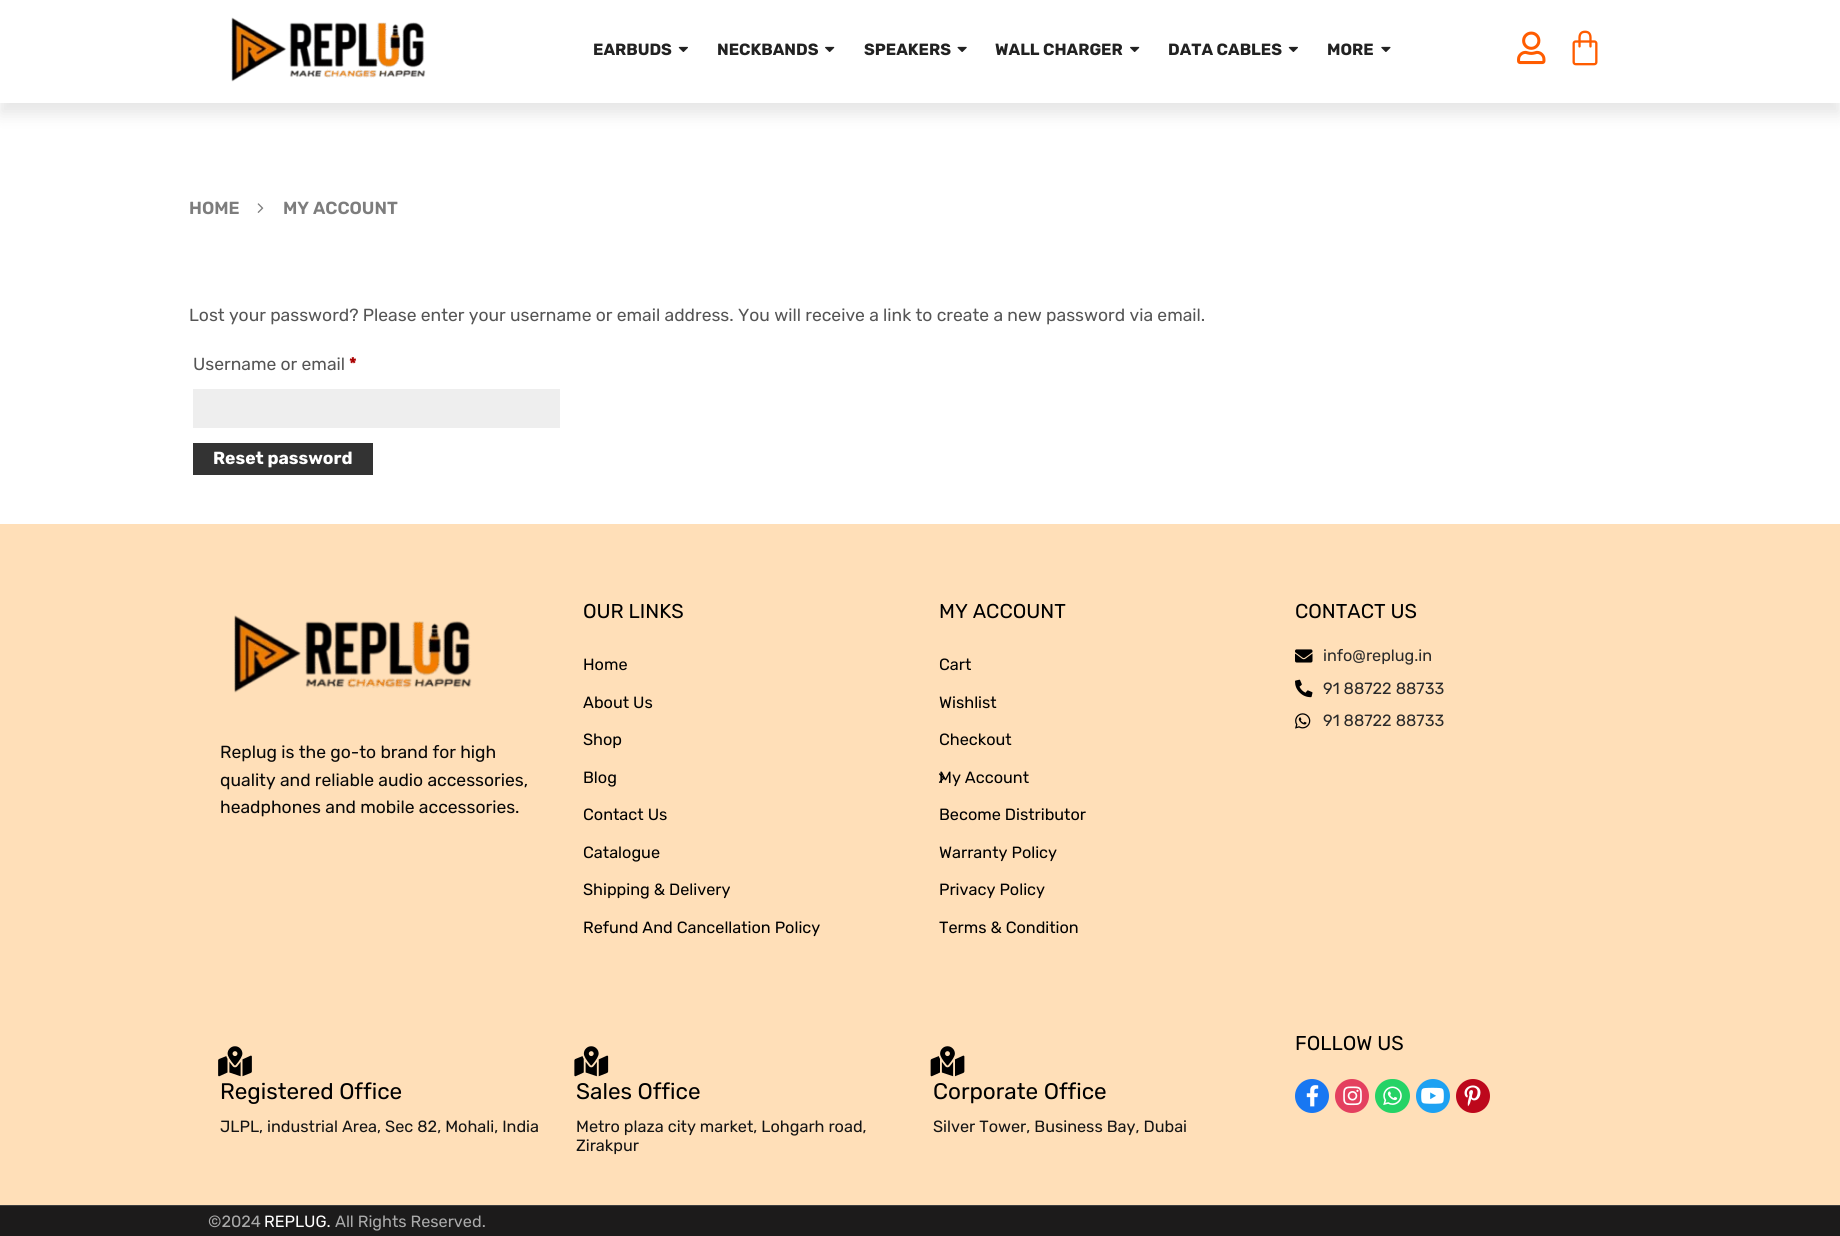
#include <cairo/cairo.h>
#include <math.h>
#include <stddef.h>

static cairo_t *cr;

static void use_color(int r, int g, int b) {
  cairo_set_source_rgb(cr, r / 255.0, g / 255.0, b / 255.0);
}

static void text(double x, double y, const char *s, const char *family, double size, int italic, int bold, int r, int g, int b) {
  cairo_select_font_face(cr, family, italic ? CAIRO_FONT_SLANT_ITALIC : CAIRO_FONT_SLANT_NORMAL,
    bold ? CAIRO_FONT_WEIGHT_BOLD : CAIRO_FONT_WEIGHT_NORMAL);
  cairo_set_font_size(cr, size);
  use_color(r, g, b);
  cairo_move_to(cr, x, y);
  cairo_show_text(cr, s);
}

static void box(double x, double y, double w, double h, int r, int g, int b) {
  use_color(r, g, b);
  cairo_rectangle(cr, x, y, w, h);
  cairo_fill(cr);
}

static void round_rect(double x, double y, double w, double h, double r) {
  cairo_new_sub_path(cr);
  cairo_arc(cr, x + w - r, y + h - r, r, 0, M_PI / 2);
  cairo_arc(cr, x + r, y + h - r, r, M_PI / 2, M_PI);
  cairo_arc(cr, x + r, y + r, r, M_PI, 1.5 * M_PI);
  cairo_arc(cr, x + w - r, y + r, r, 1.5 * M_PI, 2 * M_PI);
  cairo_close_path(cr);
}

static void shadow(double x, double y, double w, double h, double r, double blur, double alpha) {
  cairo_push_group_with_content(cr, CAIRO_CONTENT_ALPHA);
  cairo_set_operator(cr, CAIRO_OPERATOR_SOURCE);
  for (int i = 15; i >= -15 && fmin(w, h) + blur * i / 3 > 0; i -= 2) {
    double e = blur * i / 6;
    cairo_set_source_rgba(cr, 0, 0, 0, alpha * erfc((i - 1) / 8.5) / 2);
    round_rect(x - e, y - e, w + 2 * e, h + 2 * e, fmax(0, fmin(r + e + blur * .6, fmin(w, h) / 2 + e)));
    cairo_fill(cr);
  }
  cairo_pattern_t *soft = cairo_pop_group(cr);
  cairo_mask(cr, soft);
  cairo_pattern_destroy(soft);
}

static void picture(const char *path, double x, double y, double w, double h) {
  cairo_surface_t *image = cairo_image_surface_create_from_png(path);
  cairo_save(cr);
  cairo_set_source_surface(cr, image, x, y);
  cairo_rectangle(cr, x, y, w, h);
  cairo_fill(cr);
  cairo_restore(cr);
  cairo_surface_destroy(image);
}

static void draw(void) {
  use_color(255, 255, 255);
  cairo_paint(cr);
  cairo_save(cr);
  cairo_set_fill_rule(cr, CAIRO_FILL_RULE_EVEN_ODD);
  cairo_new_path(cr);
  cairo_move_to(cr, 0, 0);
  cairo_line_to(cr, 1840, 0);
  cairo_line_to(cr, 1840, 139);
  cairo_line_to(cr, 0, 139);
  cairo_close_path(cr);
  cairo_move_to(cr, 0, -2);
  cairo_line_to(cr, 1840, -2);
  cairo_line_to(cr, 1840, 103);
  cairo_line_to(cr, 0, 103);
  cairo_close_path(cr);
  cairo_clip(cr);
  use_color(0, 0, 0);
  shadow(0, 9, 1840, 105, 0, 8, 0.1);
  cairo_restore(cr);
  picture("img_01.png", 231, 17, 195, 65);
  picture("img_02.png", 678, 46, 10, 6);
  picture("img_03.png", 825, 46, 10, 6);
  picture("img_04.png", 957, 46, 10, 6);
  picture("img_03.png", 1130, 46, 10, 6);
  picture("img_02.png", 1288, 46, 10, 6);
  picture("img_05.png", 1381, 46, 10, 6);
  picture("img_06.png", 1517, 31, 29, 34);
  picture("img_07.png", 1572, 30, 26, 36);
  picture("img_08.png", 257, 203, 7, 10);
  box(193, 389, 367, 39, 238, 238, 238);
  box(193, 443, 180, 32, 51, 51, 51);
  box(0, 524, 1840, 681, 255, 223, 184);
  picture("img_10.png", 1295, 649, 18, 14);
  picture("img_11.png", 1295, 679, 18, 19);
  picture("img_12.png", 1295, 713, 16, 16);
  picture("img_13.png", 234, 615, 238, 78);
  use_color(24, 119, 242);
  cairo_arc(cr, 1312, 1096, 17, 0, 2 * M_PI);
  cairo_fill(cr);
  picture("img_14.png", 1306, 1085, 13, 22);
  use_color(228, 64, 95);
  cairo_arc(cr, 1352, 1096, 17, 0, 2 * M_PI);
  cairo_fill(cr);
  picture("img_15.png", 1343, 1086, 19, 20);
  use_color(37, 211, 102);
  round_rect(1375, 1079, 35, 34, 17);
  cairo_fill(cr);
  picture("img_16.png", 1383, 1086, 19, 19);
  use_color(29, 161, 242);
  cairo_arc(cr, 1433, 1096, 17, 0, 2 * M_PI);
  cairo_fill(cr);
  picture("img_17.png", 1421, 1087, 23, 17);
  use_color(189, 8, 28);
  cairo_arc(cr, 1473, 1096, 17, 0, 2 * M_PI);
  cairo_fill(cr);
  picture("img_18.png", 1464, 1085, 17, 22);
  picture("img_19.png", 218, 1046, 34, 31);
  picture("img_20.png", 574, 1046, 35, 31);
  picture("img_21.png", 930, 1046, 35, 31);
  box(0, 1206, 1840, 30, 28, 27, 27);
  box(0, 1205, 1840, 1, 62, 62, 62);
  text(593, 55, "EARBUDS", "Rubik", 16.25, 0, 1, 34, 34, 34);
  text(717, 55, "NECKBANDS", "Rubik", 16.25, 0, 1, 34, 34, 34);
  text(864, 55, "SPEAKERS", "Rubik", 16.25, 0, 1, 34, 34, 34);
  text(995, 55, "WALL CHARGER", "Rubik", 16.25, 0, 1, 34, 34, 34);
  text(1168, 55, "DATA CABLES", "Rubik", 16.25, 0, 1, 34, 34, 34);
  text(1327, 55, "MORE", "Rubik", 16.25, 0, 1, 34, 34, 34);
  text(189, 214, "HOME", "Rubik SemiBold", 17.5, 0, 0, 125, 125, 125);
  text(283, 214, "MY ACCOUNT", "Rubik SemiBold", 17.5, 0, 0, 125, 125, 125);
  text(189, 321, "Lost your password? Please enter your username or email address. You will receive a link to create a new password via email.", "Rubik", 17.5, 0, 0, 85, 85, 85);
  text(193, 370, "Username or email", "Rubik", 17.5, 0, 0, 85, 85, 85);
  text(349, 370, "*", "Rubik", 17.5, 0, 1, 170, 0, 0);
  text(213, 464, "Reset password", "Rubik", 17.5, 0, 1, 255, 255, 255);
  text(583, 618, "OUR LINKS", "Rubik", 20, 0, 0, 0, 0, 0);
  text(583, 670, "Home", "Rubik", 16.25, 0, 0, 0, 0, 0);
  text(583, 708, "About Us", "Rubik", 16.25, 0, 0, 0, 0, 0);
  text(583, 745, "Shop", "Rubik", 16.25, 0, 0, 0, 0, 0);
  text(583, 783, "Blog", "Rubik", 16.25, 0, 0, 0, 0, 0);
  text(583, 820, "Contact Us", "Rubik", 16.25, 0, 0, 0, 0, 0);
  text(583, 858, "Catalogue", "Rubik", 16.25, 0, 0, 0, 0, 0);
  text(583, 895, "Shipping & Delivery", "Rubik", 16.25, 0, 0, 0, 0, 0);
  text(583, 933, "Refund And Cancellation Policy", "Rubik", 16.25, 0, 0, 0, 0, 0);
  text(939, 618, "MY ACCOUNT", "Rubik", 20, 0, 0, 0, 0, 0);
  text(939, 670, "Cart", "Rubik", 16.25, 0, 0, 0, 0, 0);
  text(939, 708, "Wishlist", "Rubik", 16.25, 0, 0, 0, 0, 0);
  text(939, 745, "Checkout", "Rubik", 16.25, 0, 0, 0, 0, 0);
  text(939, 783, "My Account", "Rubik", 16.25, 0, 0, 0, 0, 0);
  picture("img_09.png", 938, 773, 7, 10);
  text(939, 820, "Become Distributor", "Rubik", 16.25, 0, 0, 0, 0, 0);
  text(939, 858, "Warranty Policy", "Rubik", 16.25, 0, 0, 0, 0, 0);
  text(939, 895, "Privacy Policy", "Rubik", 16.25, 0, 0, 0, 0, 0);
  text(939, 933, "Terms & Condition", "Rubik", 16.25, 0, 0, 0, 0, 0);
  text(1295, 618, "CONTACT US", "Rubik", 20, 0, 0, 0, 0, 0);
  text(1323, 661, "info@replug.in", "Rubik", 16.25, 0, 0, 42, 42, 42);
  text(1323, 694, "91 88722 88733", "Rubik", 16.25, 0, 0, 42, 42, 42);
  text(1323, 726, "91 88722 88733", "Rubik", 16.25, 0, 0, 42, 42, 42);
  text(220, 758, "Replug is the go-to brand for high", "Rubik", 17.5, 0, 0, 8, 8, 8);
  text(220, 786, "quality and reliable audio accessories,", "Rubik", 17.5, 0, 0, 8, 8, 8);
  text(220, 813, "headphones and mobile accessories.", "Rubik", 17.5, 0, 0, 8, 8, 8);
  text(1295, 1050, "FOLLOW US", "Rubik", 20, 0, 0, 0, 0, 0);
  text(220, 1099, "Registered Office", "Rubik", 22.5, 0, 0, 0, 0, 0);
  text(220, 1132, "JLPL, industrial Area, Sec 82, Mohali, India", "Rubik", 16.25, 0, 0, 20, 20, 20);
  text(576, 1099, "Sales Office", "Rubik", 22.5, 0, 0, 0, 0, 0);
  text(576, 1132, "Metro plaza city market, Lohgarh road,", "Rubik", 16.25, 0, 0, 20, 20, 20);
  text(576, 1151, "Zirakpur", "Rubik", 16.25, 0, 0, 20, 20, 20);
  text(933, 1099, "Corporate Office", "Rubik", 22.5, 0, 0, 0, 0, 0);
  text(933, 1132, "Silver Tower, Business Bay, Dubai", "Rubik", 16.25, 0, 0, 20, 20, 20);
  text(208, 1227, "©2024", "Rubik", 16.25, 0, 0, 170, 170, 170);
  text(264, 1227, "REPLUG.", "Rubik", 16.25, 0, 0, 255, 255, 255);
  text(335, 1227, "All Rights Reserved.", "Rubik", 16.25, 0, 0, 170, 170, 170);
}

int main(void) {
  cairo_surface_t *surface = cairo_image_surface_create(CAIRO_FORMAT_RGB24, 1840, 1236);
  cr = cairo_create(surface);
  cairo_font_options_t *options = cairo_font_options_create();
  cairo_font_options_set_hint_metrics(options, CAIRO_HINT_METRICS_OFF);
  cairo_font_options_set_hint_style(options, CAIRO_HINT_STYLE_NONE);
  cairo_set_font_options(cr, options);
  cairo_set_miter_limit(cr, 4);
  draw();
  cairo_surface_write_to_png(surface, "out.png");
  cairo_font_options_destroy(options);
  cairo_destroy(cr);
  cairo_surface_destroy(surface);
  return 0;
}
